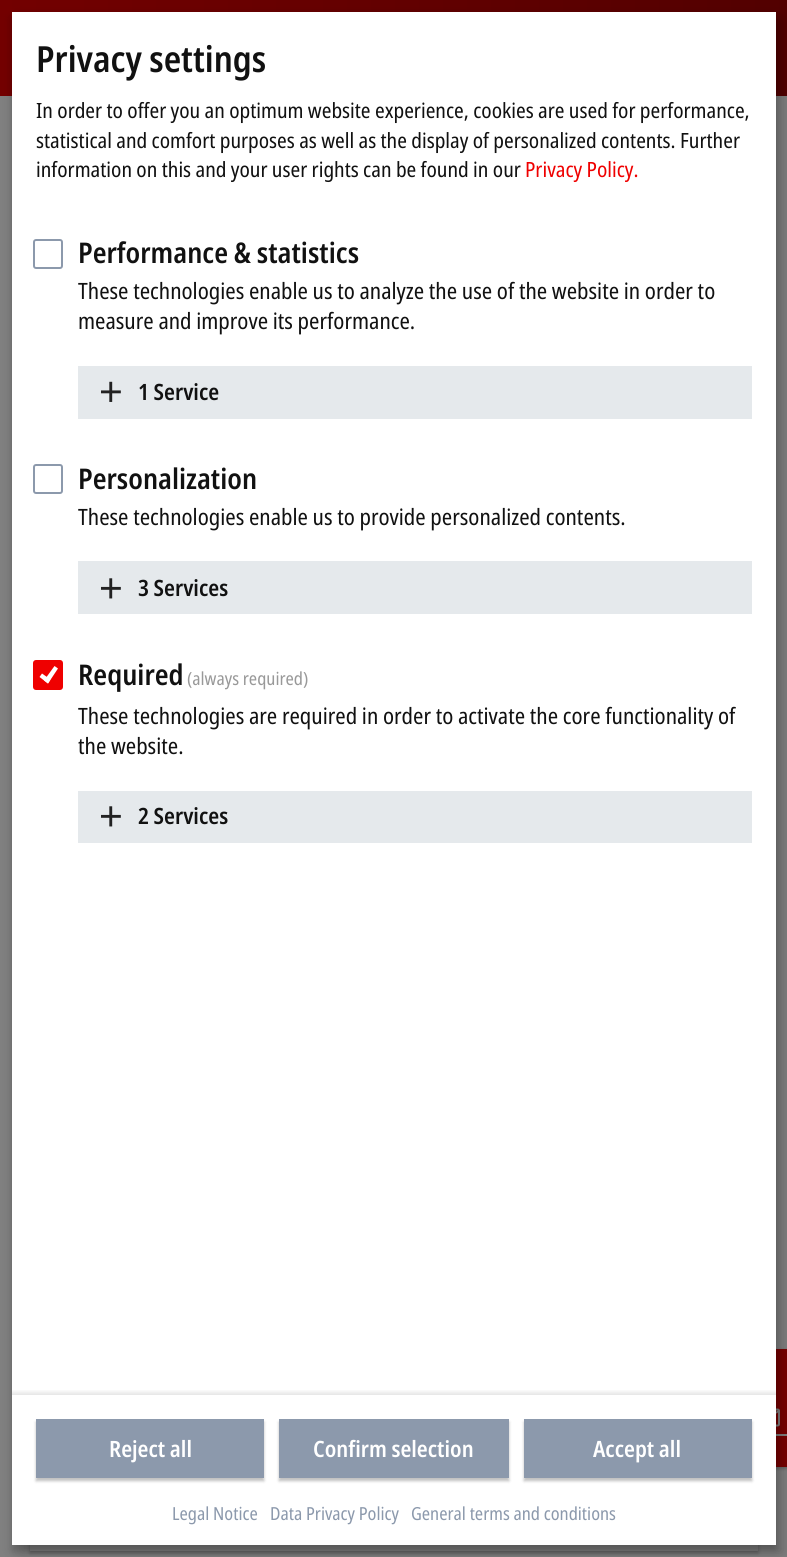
#include <cairo/cairo.h>
#include <math.h>
#include <stddef.h>

static cairo_t *cr;

static void use_color(int r, int g, int b) {
  cairo_set_source_rgb(cr, r / 255.0, g / 255.0, b / 255.0);
}

static void text(double x, double y, const char *s, const char *family, double size, int italic, int bold, int r, int g, int b) {
  cairo_select_font_face(cr, family, italic ? CAIRO_FONT_SLANT_ITALIC : CAIRO_FONT_SLANT_NORMAL,
    bold ? CAIRO_FONT_WEIGHT_BOLD : CAIRO_FONT_WEIGHT_NORMAL);
  cairo_set_font_size(cr, size);
  use_color(r, g, b);
  cairo_move_to(cr, x, y);
  cairo_show_text(cr, s);
}

static void box(double x, double y, double w, double h, int r, int g, int b) {
  use_color(r, g, b);
  cairo_rectangle(cr, x, y, w, h);
  cairo_fill(cr);
}

static void round_rect(double x, double y, double w, double h, double r) {
  cairo_new_sub_path(cr);
  cairo_arc(cr, x + w - r, y + h - r, r, 0, M_PI / 2);
  cairo_arc(cr, x + r, y + h - r, r, M_PI / 2, M_PI);
  cairo_arc(cr, x + r, y + r, r, M_PI, 1.5 * M_PI);
  cairo_arc(cr, x + w - r, y + r, r, 1.5 * M_PI, 2 * M_PI);
  cairo_close_path(cr);
}

static void shadow(double x, double y, double w, double h, double r, double blur, double alpha) {
  cairo_push_group_with_content(cr, CAIRO_CONTENT_ALPHA);
  cairo_set_operator(cr, CAIRO_OPERATOR_SOURCE);
  for (int i = 15; i >= -15 && fmin(w, h) + blur * i / 3 > 0; i -= 2) {
    double e = blur * i / 6;
    cairo_set_source_rgba(cr, 0, 0, 0, alpha * erfc((i - 1) / 8.5) / 2);
    round_rect(x - e, y - e, w + 2 * e, h + 2 * e, fmax(0, fmin(r + e + blur * .6, fmin(w, h) / 2 + e)));
    cairo_fill(cr);
  }
  cairo_pattern_t *soft = cairo_pop_group(cr);
  cairo_mask(cr, soft);
  cairo_pattern_destroy(soft);
}

static void picture(const char *path, double x, double y, double w, double h) {
  cairo_surface_t *image = cairo_image_surface_create_from_png(path);
  cairo_save(cr);
  cairo_set_source_surface(cr, image, x, y);
  cairo_rectangle(cr, x, y, w, h);
  cairo_fill(cr);
  cairo_restore(cr);
  cairo_surface_destroy(image);
}

static void draw(void) {
  cairo_pattern_t *gradient;
  use_color(128, 128, 128);
  cairo_paint(cr);
  gradient = cairo_pattern_create_linear(0, 48, 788, 48);
  cairo_pattern_add_color_stop_rgba(gradient, 0, 0.451, 0, 0, 1);
  cairo_pattern_add_color_stop_rgba(gradient, 1, 0.322, 0, 0, 1);
  cairo_set_source(cr, gradient);
  cairo_pattern_destroy(gradient);
  cairo_rectangle(cr, 0, 0, 787, 96);
  cairo_fill(cr);
  use_color(0, 0, 0);
  shadow(708, 1350, 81, 119, 0, 1.5, 0.2);
  box(776, 1349, 11, 118, 120, 0, 0);
  picture("img_01.png", 776, 1408, 4, 19);
  box(776, 1434, 11, 2, 128, 128, 128);
  use_color(0, 0, 0);
  shadow(30, 1478, 728, 75, 0, 2, 0.25);
  box(30, 1545, 728, 6, 128, 128, 128);
  use_color(0, 0, 0);
  shadow(20, 20, 763, 1533, 0, 7.5, 0.19);
  shadow(12, 18, 764, 1533, 0, 4.5, 0.2);
  box(12, 12, 764, 1533, 255, 255, 255);
  round_rect(34, 240, 28, 28, 2);
  use_color(140, 153, 172);
  cairo_stroke(cr);
  box(78, 366, 674, 53, 229, 233, 236);
  picture("img_02.png", 101, 381, 20, 21);
  round_rect(34, 465, 28, 28, 2);
  use_color(140, 153, 172);
  cairo_stroke(cr);
  box(78, 561, 674, 53, 229, 233, 236);
  picture("img_03.png", 101, 578, 20, 21);
  use_color(239, 0, 0);
  round_rect(34, 661, 28, 28, 2);
  cairo_fill_preserve(cr);
  cairo_stroke(cr);
  use_color(255, 255, 255);
  cairo_new_path(cr);
  cairo_move_to(cr, 54.5, 666);
  cairo_line_to(cr, 58, 668.5);
  cairo_line_to(cr, 48, 683.5);
  cairo_line_to(cr, 44, 680.5);
  cairo_close_path(cr);
  cairo_fill(cr);
  cairo_new_path(cr);
  cairo_move_to(cr, 42, 673.5);
  cairo_line_to(cr, 50.5, 679.5);
  cairo_line_to(cr, 48, 683.5);
  cairo_line_to(cr, 39.5, 677);
  cairo_close_path(cr);
  cairo_fill(cr);
  box(78, 791, 674, 52, 229, 233, 236);
  picture("img_03.png", 101, 806, 20, 21);
  gradient = cairo_pattern_create_linear(394, 1395, 394, 1389);
  cairo_pattern_add_color_stop_rgba(gradient, 0, 0.902, 0.902, 0.902, 1);
  cairo_pattern_add_color_stop_rgba(gradient, 1, 1, 1, 1, 1);
  cairo_set_source(cr, gradient);
  cairo_pattern_destroy(gradient);
  cairo_rectangle(cr, 12, 1390, 764, 5);
  cairo_fill(cr);
  use_color(0, 0, 0);
  shadow(36, 1422, 228, 59, 0, 1.5, 0.25);
  box(36, 1419, 228, 59, 140, 153, 172);
  use_color(0, 0, 0);
  shadow(279, 1422, 230, 59, 0, 1.5, 0.25);
  box(279, 1419, 230, 59, 140, 153, 172);
  use_color(0, 0, 0);
  shadow(524, 1422, 228, 59, 0, 1.5, 0.25);
  box(524, 1419, 228, 59, 140, 153, 172);
  text(36, 72, "Privacy settings", "Noto Sans SemiBold", 36, 0, 0, 17, 17, 17);
  text(36, 118, "In order to offer you an optimum website experience, cookies are used for performance,", "Noto Sans", 21, 0, 0, 17, 17, 17);
  text(36, 148, "statistical and comfort purposes as well as the display of personalized contents. Further", "Noto Sans", 21, 0, 0, 17, 17, 17);
  text(36, 177, "information on this and your user rights can be found in our", "Noto Sans", 21, 0, 0, 17, 17, 17);
  text(525, 177, "Privacy Policy.", "Noto Sans", 21, 0, 0, 239, 0, 0);
  text(78, 263, "Performance & statistics", "Noto Sans SemiBold", 28.5, 0, 0, 17, 17, 17);
  text(78, 299, "These technologies enable us to analyze the use of the website in order to", "Noto Sans", 22.5, 0, 0, 17, 17, 17);
  text(78, 329, "measure and improve its performance.", "Noto Sans", 22.5, 0, 0, 17, 17, 17);
  text(138, 400, "1 Service", "Noto Sans SemiBold", 22.5, 0, 0, 17, 17, 17);
  text(78, 489, "Personalization", "Noto Sans SemiBold", 28.5, 0, 0, 17, 17, 17);
  text(78, 525, "These technologies enable us to provide personalized contents.", "Noto Sans", 22.5, 0, 0, 17, 17, 17);
  text(138, 596, "3 Services", "Noto Sans SemiBold", 22.5, 0, 0, 17, 17, 17);
  text(78, 685, "Required", "Noto Sans SemiBold", 28.5, 0, 0, 17, 17, 17);
  text(187, 685, "(always required)", "Noto Sans", 18, 0, 0, 153, 153, 153);
  text(78, 724, "These technologies are required in order to activate the core functionality of", "Noto Sans", 22.5, 0, 0, 17, 17, 17);
  text(78, 754, "the website.", "Noto Sans", 22.5, 0, 0, 17, 17, 17);
  text(138, 824, "2 Services", "Noto Sans SemiBold", 22.5, 0, 0, 17, 17, 17);
  text(109, 1457, "Reject all", "Noto Sans SemiBold", 22.5, 0, 0, 255, 255, 255);
  text(313, 1457, "Confirm selection", "Noto Sans SemiBold", 22.5, 0, 0, 255, 255, 255);
  text(593, 1457, "Accept all", "Noto Sans SemiBold", 22.5, 0, 0, 255, 255, 255);
  text(172, 1520, "Legal Notice", "Noto Sans", 18, 0, 0, 140, 153, 172);
  text(270, 1520, "Data Privacy Policy", "Noto Sans", 18, 0, 0, 140, 153, 172);
  text(411, 1520, "General terms and conditions", "Noto Sans", 18, 0, 0, 140, 153, 172);
}

int main(void) {
  cairo_surface_t *surface = cairo_image_surface_create(CAIRO_FORMAT_RGB24, 787, 1557);
  cr = cairo_create(surface);
  cairo_font_options_t *options = cairo_font_options_create();
  cairo_font_options_set_hint_metrics(options, CAIRO_HINT_METRICS_OFF);
  cairo_font_options_set_hint_style(options, CAIRO_HINT_STYLE_NONE);
  cairo_set_font_options(cr, options);
  cairo_set_miter_limit(cr, 4);
  draw();
  cairo_surface_write_to_png(surface, "out.png");
  cairo_font_options_destroy(options);
  cairo_destroy(cr);
  cairo_surface_destroy(surface);
  return 0;
}
